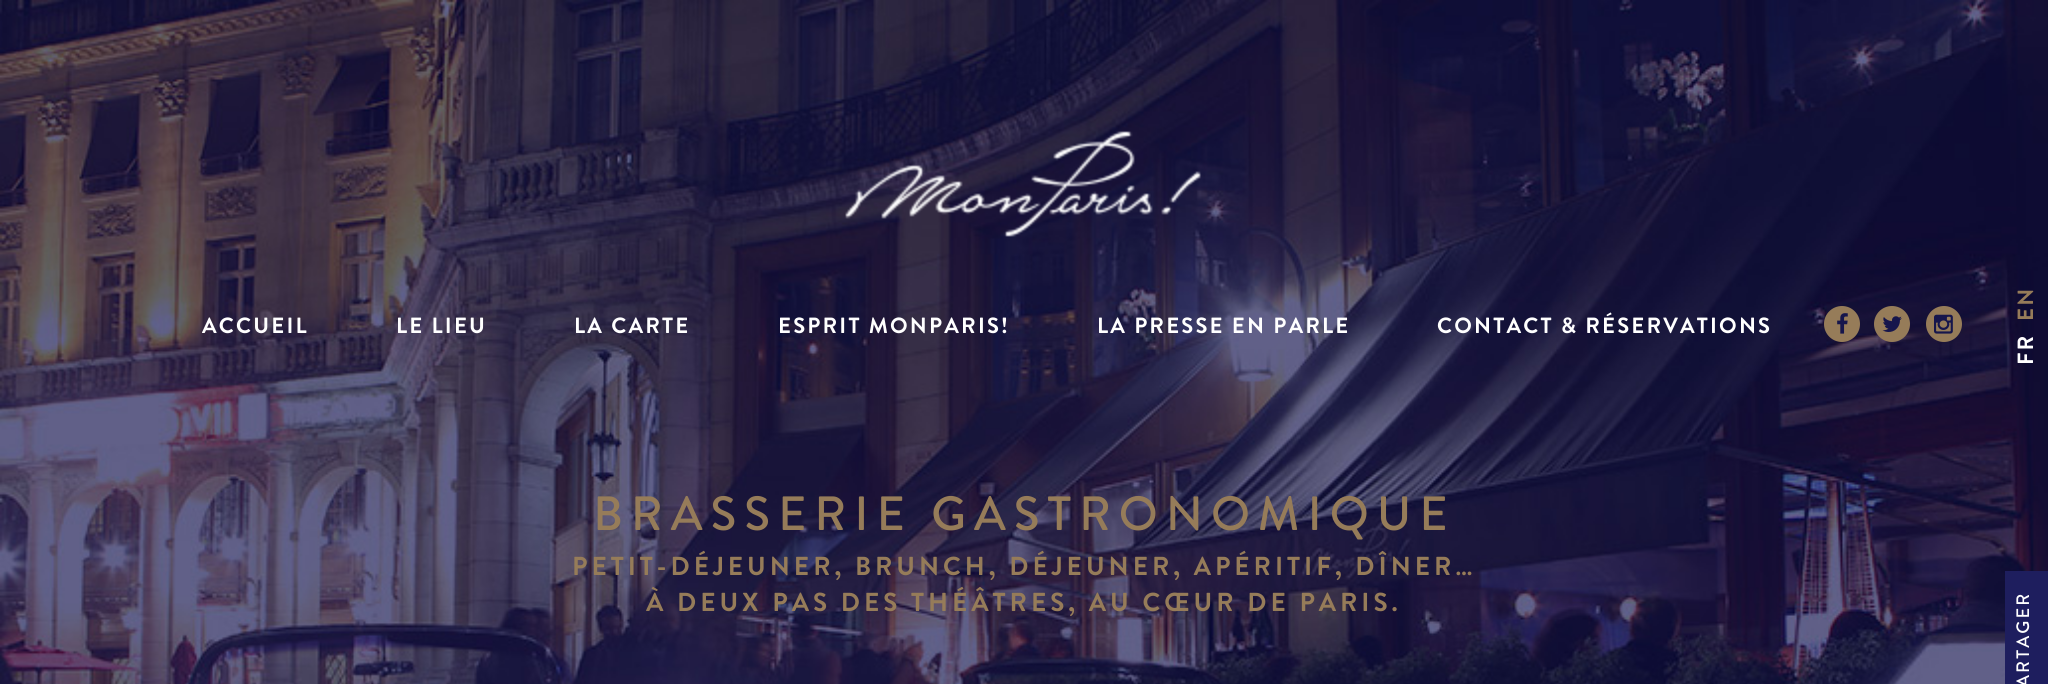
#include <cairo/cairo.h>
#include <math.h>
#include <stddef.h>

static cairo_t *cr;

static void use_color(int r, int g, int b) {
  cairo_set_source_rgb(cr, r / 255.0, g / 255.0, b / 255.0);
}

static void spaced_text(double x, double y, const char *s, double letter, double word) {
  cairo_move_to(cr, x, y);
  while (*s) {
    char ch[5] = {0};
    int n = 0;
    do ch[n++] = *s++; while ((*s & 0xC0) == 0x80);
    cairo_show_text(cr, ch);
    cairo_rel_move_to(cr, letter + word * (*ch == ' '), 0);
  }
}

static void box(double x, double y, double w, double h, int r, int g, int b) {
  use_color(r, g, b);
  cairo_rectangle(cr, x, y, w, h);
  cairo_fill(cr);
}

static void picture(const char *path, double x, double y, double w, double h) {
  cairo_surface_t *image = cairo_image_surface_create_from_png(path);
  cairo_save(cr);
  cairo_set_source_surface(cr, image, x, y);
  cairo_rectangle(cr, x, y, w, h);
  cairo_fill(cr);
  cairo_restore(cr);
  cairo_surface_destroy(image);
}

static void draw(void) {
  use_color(255, 255, 255);
  cairo_paint(cr);
  picture("img_01.png", 0, 0, 2048, 684);
  picture("img_02.png", 845, 131, 356, 106);
  use_color(150, 124, 89);
  cairo_arc(cr, 1842, 324, 18, 0, 2 * M_PI);
  cairo_fill(cr);
  picture("img_03.png", 1837, 313, 11, 21);
  cairo_arc(cr, 1892, 324, 18, 0, 2 * M_PI);
  cairo_fill(cr);
  picture("img_04.png", 1882, 316, 20, 16);
  cairo_arc(cr, 1944, 324, 18, 0, 2 * M_PI);
  cairo_fill(cr);
  picture("img_05.png", 1934, 314, 19, 20);
  box(2005, 571, 43, 113, 30, 30, 94);
  cairo_select_font_face(cr, "Brandon Grotesque", CAIRO_FONT_SLANT_NORMAL, CAIRO_FONT_WEIGHT_BOLD);
  cairo_set_font_size(cr, 22);
  use_color(255, 255, 255);
  spaced_text(202, 333, "ACCUEIL", 2.2, 0);
  spaced_text(396, 333, "LE LIEU", 2.2, 0);
  spaced_text(574, 333, "LA CARTE", 2.2, 0);
  spaced_text(778, 333, "ESPRIT MONPARIS!", 2.2, 0);
  spaced_text(1097, 333, "LA PRESSE EN PARLE", 2.2, 0);
  spaced_text(1437, 333, "CONTACT & RÉSERVATIONS", 2.2, 0);
  use_color(150, 124, 89);
  cairo_save(cr);
  cairo_translate(cr, 2033, 321);
  cairo_rotate(cr, -90 * M_PI / 180);
  spaced_text(0, 0, "EN", 2.2, 0);
  cairo_restore(cr);
  use_color(255, 255, 255);
  cairo_save(cr);
  cairo_translate(cr, 2033, 365);
  cairo_rotate(cr, -90 * M_PI / 180);
  spaced_text(0, 0, "FR", 2.2, 0);
  cairo_restore(cr);
  cairo_select_font_face(cr, "Brandon Grotesque Medium", CAIRO_FONT_SLANT_NORMAL, CAIRO_FONT_WEIGHT_NORMAL);
  cairo_set_font_size(cr, 48);
  use_color(150, 124, 89);
  spaced_text(593, 530, "BRASSERIE GASTRONOMIQUE", 8, 0);
  cairo_select_font_face(cr, "Brandon Grotesque", CAIRO_FONT_SLANT_NORMAL, CAIRO_FONT_WEIGHT_BOLD);
  cairo_set_font_size(cr, 26);
  spaced_text(572, 575, "PETIT-DÉJEUNER, BRUNCH, DÉJEUNER, APÉRITIF, DÎNER…", 4, 0);
  spaced_text(646, 611, "À DEUX PAS DES THÉÂTRES, AU CŒUR DE PARIS.", 4, 0);
  cairo_select_font_face(cr, "Brandon Grotesque Medium", CAIRO_FONT_SLANT_NORMAL, CAIRO_FONT_WEIGHT_NORMAL);
  cairo_set_font_size(cr, 18);
  use_color(255, 255, 255);
  cairo_save(cr);
  cairo_translate(cr, 2029, 700);
  cairo_rotate(cr, -90 * M_PI / 180);
  spaced_text(0, 0, "PARTAGER", 2.2, 0);
  cairo_restore(cr);
}

int main(void) {
  cairo_surface_t *surface = cairo_image_surface_create(CAIRO_FORMAT_RGB24, 2048, 684);
  cr = cairo_create(surface);
  cairo_font_options_t *options = cairo_font_options_create();
  cairo_font_options_set_hint_metrics(options, CAIRO_HINT_METRICS_OFF);
  cairo_font_options_set_hint_style(options, CAIRO_HINT_STYLE_NONE);
  cairo_set_font_options(cr, options);
  cairo_set_miter_limit(cr, 4);
  draw();
  cairo_surface_write_to_png(surface, "out.png");
  cairo_font_options_destroy(options);
  cairo_destroy(cr);
  cairo_surface_destroy(surface);
  return 0;
}
